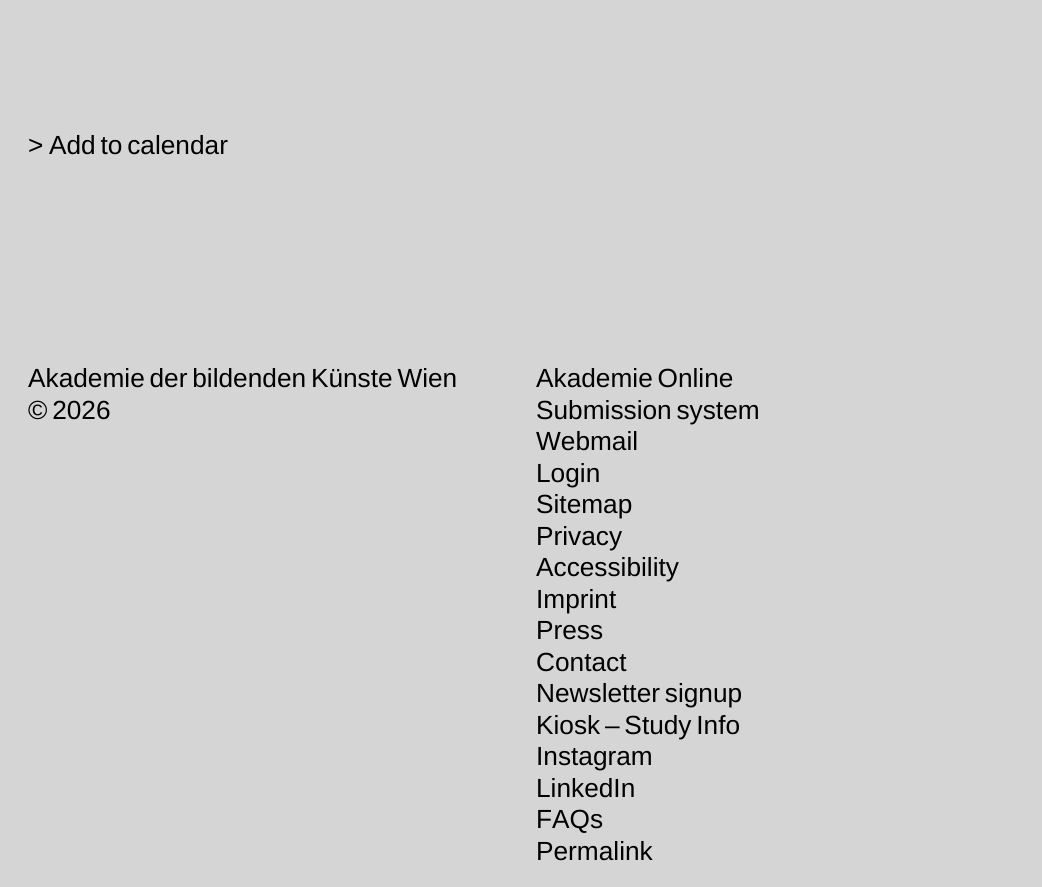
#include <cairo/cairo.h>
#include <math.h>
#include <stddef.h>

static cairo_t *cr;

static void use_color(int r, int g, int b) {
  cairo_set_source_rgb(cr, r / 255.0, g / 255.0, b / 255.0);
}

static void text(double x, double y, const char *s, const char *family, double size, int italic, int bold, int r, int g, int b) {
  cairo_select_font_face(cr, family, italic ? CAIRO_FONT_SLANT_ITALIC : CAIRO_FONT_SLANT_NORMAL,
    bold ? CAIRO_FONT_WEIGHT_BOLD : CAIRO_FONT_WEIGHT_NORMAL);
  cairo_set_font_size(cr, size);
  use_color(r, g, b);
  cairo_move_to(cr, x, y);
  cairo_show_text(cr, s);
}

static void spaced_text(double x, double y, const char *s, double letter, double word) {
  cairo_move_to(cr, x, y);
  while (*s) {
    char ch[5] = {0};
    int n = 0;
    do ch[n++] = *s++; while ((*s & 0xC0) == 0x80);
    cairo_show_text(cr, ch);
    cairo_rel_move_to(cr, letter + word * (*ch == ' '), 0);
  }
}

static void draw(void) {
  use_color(213, 213, 213);
  cairo_paint(cr);
  text(28, 154, ">", "Liberation Sans", 26.25, 0, 0, 0, 0, 0);
  spaced_text(49, 154, "Add to calendar", 0, -2.5);
  spaced_text(28, 387, "Akademie der bildenden Künste Wien", 0, -2.5);
  spaced_text(28, 419, "© 2026", 0, -2.5);
  spaced_text(536, 387, "Akademie Online", 0, -2.5);
  spaced_text(536, 419, "Submission system", 0, -2.5);
  text(536, 450, "Webmail", "Liberation Sans", 26.25, 0, 0, 0, 0, 0);
  text(536, 482, "Login", "Liberation Sans", 26.25, 0, 0, 0, 0, 0);
  text(536, 513, "Sitemap", "Liberation Sans", 26.25, 0, 0, 0, 0, 0);
  text(536, 545, "Privacy", "Liberation Sans", 26.25, 0, 0, 0, 0, 0);
  text(536, 576, "Accessibility", "Liberation Sans", 26.25, 0, 0, 0, 0, 0);
  text(536, 608, "Imprint", "Liberation Sans", 26.25, 0, 0, 0, 0, 0);
  text(536, 639, "Press", "Liberation Sans", 26.25, 0, 0, 0, 0, 0);
  text(536, 671, "Contact", "Liberation Sans", 26.25, 0, 0, 0, 0, 0);
  spaced_text(536, 702, "Newsletter signup", 0, -2.5);
  spaced_text(536, 734, "Kiosk – Study Info", 0, -2.5);
  text(536, 765, "Instagram", "Liberation Sans", 26.25, 0, 0, 0, 0, 0);
  text(536, 797, "LinkedIn", "Liberation Sans", 26.25, 0, 0, 0, 0, 0);
  text(536, 828, "FAQs", "Liberation Sans", 26.25, 0, 0, 0, 0, 0);
  text(536, 860, "Permalink", "Liberation Sans", 26.25, 0, 0, 0, 0, 0);
}

int main(void) {
  cairo_surface_t *surface = cairo_image_surface_create(CAIRO_FORMAT_RGB24, 1042, 887);
  cr = cairo_create(surface);
  cairo_font_options_t *options = cairo_font_options_create();
  cairo_font_options_set_hint_metrics(options, CAIRO_HINT_METRICS_OFF);
  cairo_font_options_set_hint_style(options, CAIRO_HINT_STYLE_NONE);
  cairo_set_font_options(cr, options);
  cairo_set_miter_limit(cr, 4);
  draw();
  cairo_surface_write_to_png(surface, "out.png");
  cairo_font_options_destroy(options);
  cairo_destroy(cr);
  cairo_surface_destroy(surface);
  return 0;
}
